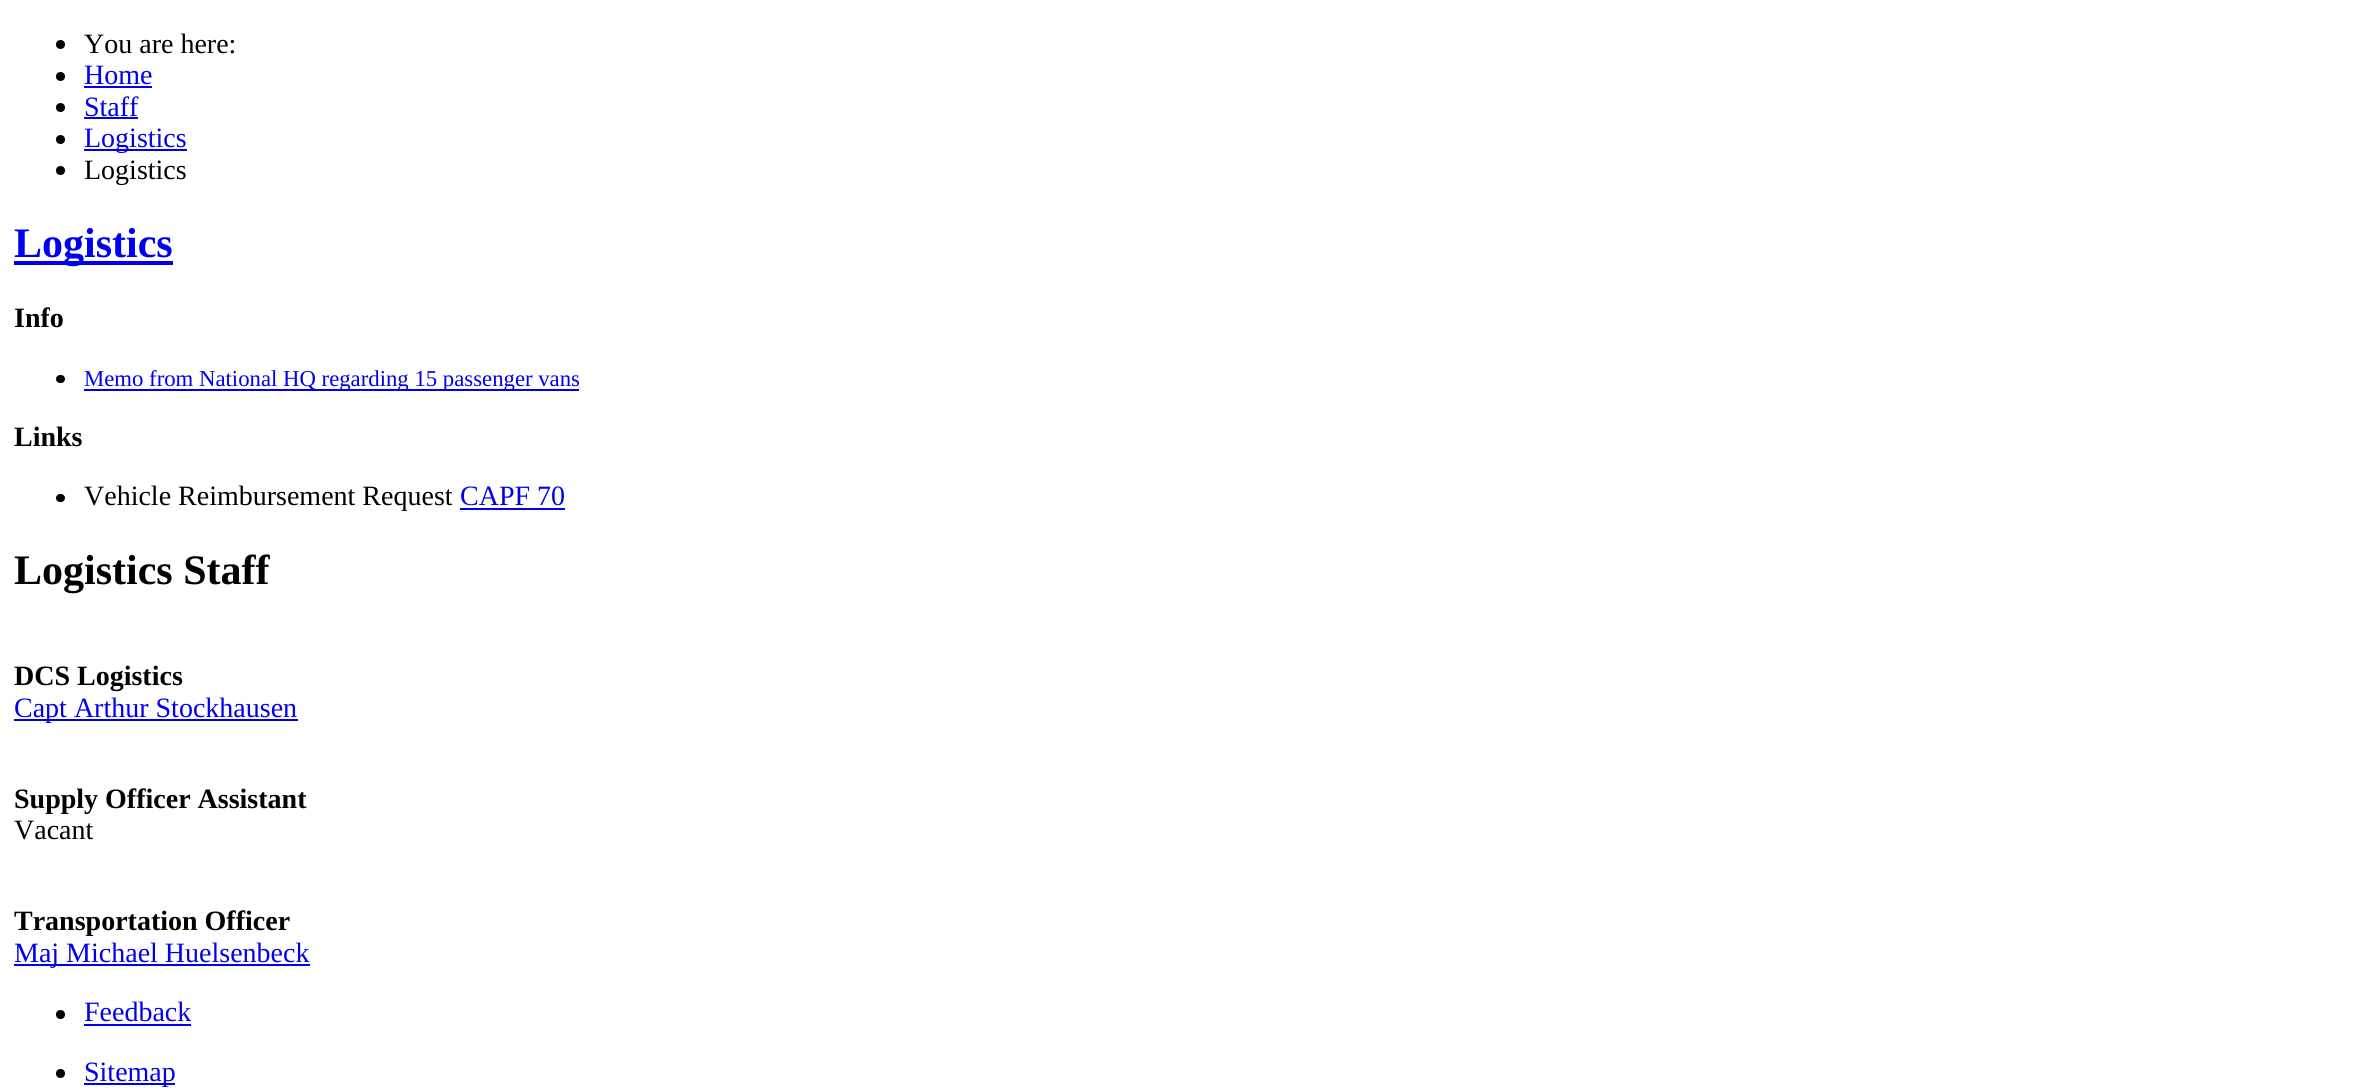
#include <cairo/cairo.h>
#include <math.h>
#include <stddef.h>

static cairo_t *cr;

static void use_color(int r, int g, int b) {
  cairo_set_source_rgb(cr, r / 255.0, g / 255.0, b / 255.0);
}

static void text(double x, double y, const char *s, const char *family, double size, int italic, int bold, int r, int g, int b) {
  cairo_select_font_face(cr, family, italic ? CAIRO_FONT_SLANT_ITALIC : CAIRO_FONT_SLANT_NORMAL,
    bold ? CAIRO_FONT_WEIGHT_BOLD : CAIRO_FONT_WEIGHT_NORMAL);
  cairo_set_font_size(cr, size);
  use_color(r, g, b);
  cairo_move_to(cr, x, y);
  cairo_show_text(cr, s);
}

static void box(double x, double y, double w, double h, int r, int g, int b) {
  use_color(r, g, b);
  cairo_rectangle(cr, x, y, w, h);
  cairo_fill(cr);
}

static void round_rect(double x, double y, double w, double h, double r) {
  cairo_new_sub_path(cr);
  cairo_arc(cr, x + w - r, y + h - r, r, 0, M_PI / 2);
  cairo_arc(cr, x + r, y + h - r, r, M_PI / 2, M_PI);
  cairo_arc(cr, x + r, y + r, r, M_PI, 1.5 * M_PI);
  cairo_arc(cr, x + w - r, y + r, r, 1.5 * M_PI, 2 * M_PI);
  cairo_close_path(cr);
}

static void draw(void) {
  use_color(255, 255, 255);
  cairo_paint(cr);
  use_color(0, 0, 0);
  cairo_arc(cr, 60.5, 44.5, 4.5, 0, 2 * M_PI);
  cairo_fill(cr);
  cairo_arc(cr, 60.5, 76.5, 4.5, 0, 2 * M_PI);
  cairo_fill(cr);
  box(84, 86, 68, 2, 0, 0, 238);
  use_color(0, 0, 0);
  cairo_arc(cr, 60.5, 107.5, 4.5, 0, 2 * M_PI);
  cairo_fill(cr);
  box(84, 117, 54, 2, 0, 0, 238);
  use_color(0, 0, 0);
  cairo_arc(cr, 60.5, 139.5, 4.5, 0, 2 * M_PI);
  cairo_fill(cr);
  box(84, 149, 103, 2, 0, 0, 238);
  use_color(0, 0, 0);
  cairo_arc(cr, 60.5, 170.5, 4.5, 0, 2 * M_PI);
  cairo_fill(cr);
  box(14, 261, 159, 4, 0, 0, 238);
  use_color(0, 0, 0);
  round_rect(56, 375, 9, 8, 4);
  cairo_fill(cr);
  box(84, 389, 495, 2, 0, 0, 238);
  use_color(0, 0, 0);
  round_rect(56, 494, 9, 8, 4);
  cairo_fill(cr);
  box(460, 508, 105, 2, 0, 0, 238);
  box(14, 719, 284, 2, 0, 0, 238);
  box(14, 964, 296, 2, 0, 0, 238);
  use_color(0, 0, 0);
  cairo_arc(cr, 60.5, 1014.5, 4.5, 0, 2 * M_PI);
  cairo_fill(cr);
  box(84, 1024, 107, 2, 0, 0, 238);
  use_color(0, 0, 0);
  cairo_arc(cr, 60.5, 1073.5, 4.5, 0, 2 * M_PI);
  cairo_fill(cr);
  box(84, 1083, 91, 2, 0, 0, 238);
  text(84, 53, "You are here:", "Liberation Serif", 28, 0, 0, 0, 0, 0);
  text(84, 84, "Home", "Liberation Serif", 28, 0, 0, 0, 0, 238);
  text(84, 116, "Staff", "Liberation Serif", 28, 0, 0, 0, 0, 238);
  text(84, 147, "Logistics", "Liberation Serif", 28, 0, 0, 0, 0, 238);
  text(84, 179, "Logistics", "Liberation Serif", 28, 0, 0, 0, 0, 0);
  text(14, 257, "Logistics", "Liberation Serif", 42, 0, 1, 0, 0, 238);
  text(14, 327, "Info", "Liberation Serif", 28, 0, 1, 0, 0, 0);
  text(84, 386, "Memo from National HQ regarding 15 passenger vans", "Liberation Serif", 22.75, 0, 0, 0, 0, 238);
  text(14, 446, "Links", "Liberation Serif", 28, 0, 1, 0, 0, 0);
  text(84, 505, "Vehicle Reimbursement Request", "Liberation Serif", 28, 0, 0, 0, 0, 0);
  text(460, 505, "CAPF 70", "Liberation Serif", 28, 0, 0, 0, 0, 238);
  text(14, 584, "Logistics Staff", "Liberation Serif", 42, 0, 1, 0, 0, 0);
  text(14, 685, "DCS Logistics", "Liberation Serif", 28, 0, 1, 0, 0, 0);
  text(14, 717, "Capt Arthur Stockhausen", "Liberation Serif", 28, 0, 0, 0, 0, 238);
  text(14, 808, "Supply Officer Assistant", "Liberation Serif", 28, 0, 1, 0, 0, 0);
  text(14, 839, "Vacant", "Liberation Serif", 28, 0, 0, 0, 0, 0);
  text(14, 930, "Transportation Officer", "Liberation Serif", 28, 0, 1, 0, 0, 0);
  text(14, 962, "Maj Michael Huelsenbeck", "Liberation Serif", 28, 0, 0, 0, 0, 238);
  text(84, 1021, "Feedback", "Liberation Serif", 28, 0, 0, 0, 0, 238);
  text(84, 1081, "Sitemap", "Liberation Serif", 28, 0, 0, 0, 0, 238);
}

int main(void) {
  cairo_surface_t *surface = cairo_image_surface_create(CAIRO_FORMAT_RGB24, 2365, 1092);
  cr = cairo_create(surface);
  cairo_font_options_t *options = cairo_font_options_create();
  cairo_font_options_set_hint_metrics(options, CAIRO_HINT_METRICS_OFF);
  cairo_font_options_set_hint_style(options, CAIRO_HINT_STYLE_NONE);
  cairo_set_font_options(cr, options);
  cairo_set_miter_limit(cr, 4);
  draw();
  cairo_surface_write_to_png(surface, "out.png");
  cairo_font_options_destroy(options);
  cairo_destroy(cr);
  cairo_surface_destroy(surface);
  return 0;
}
